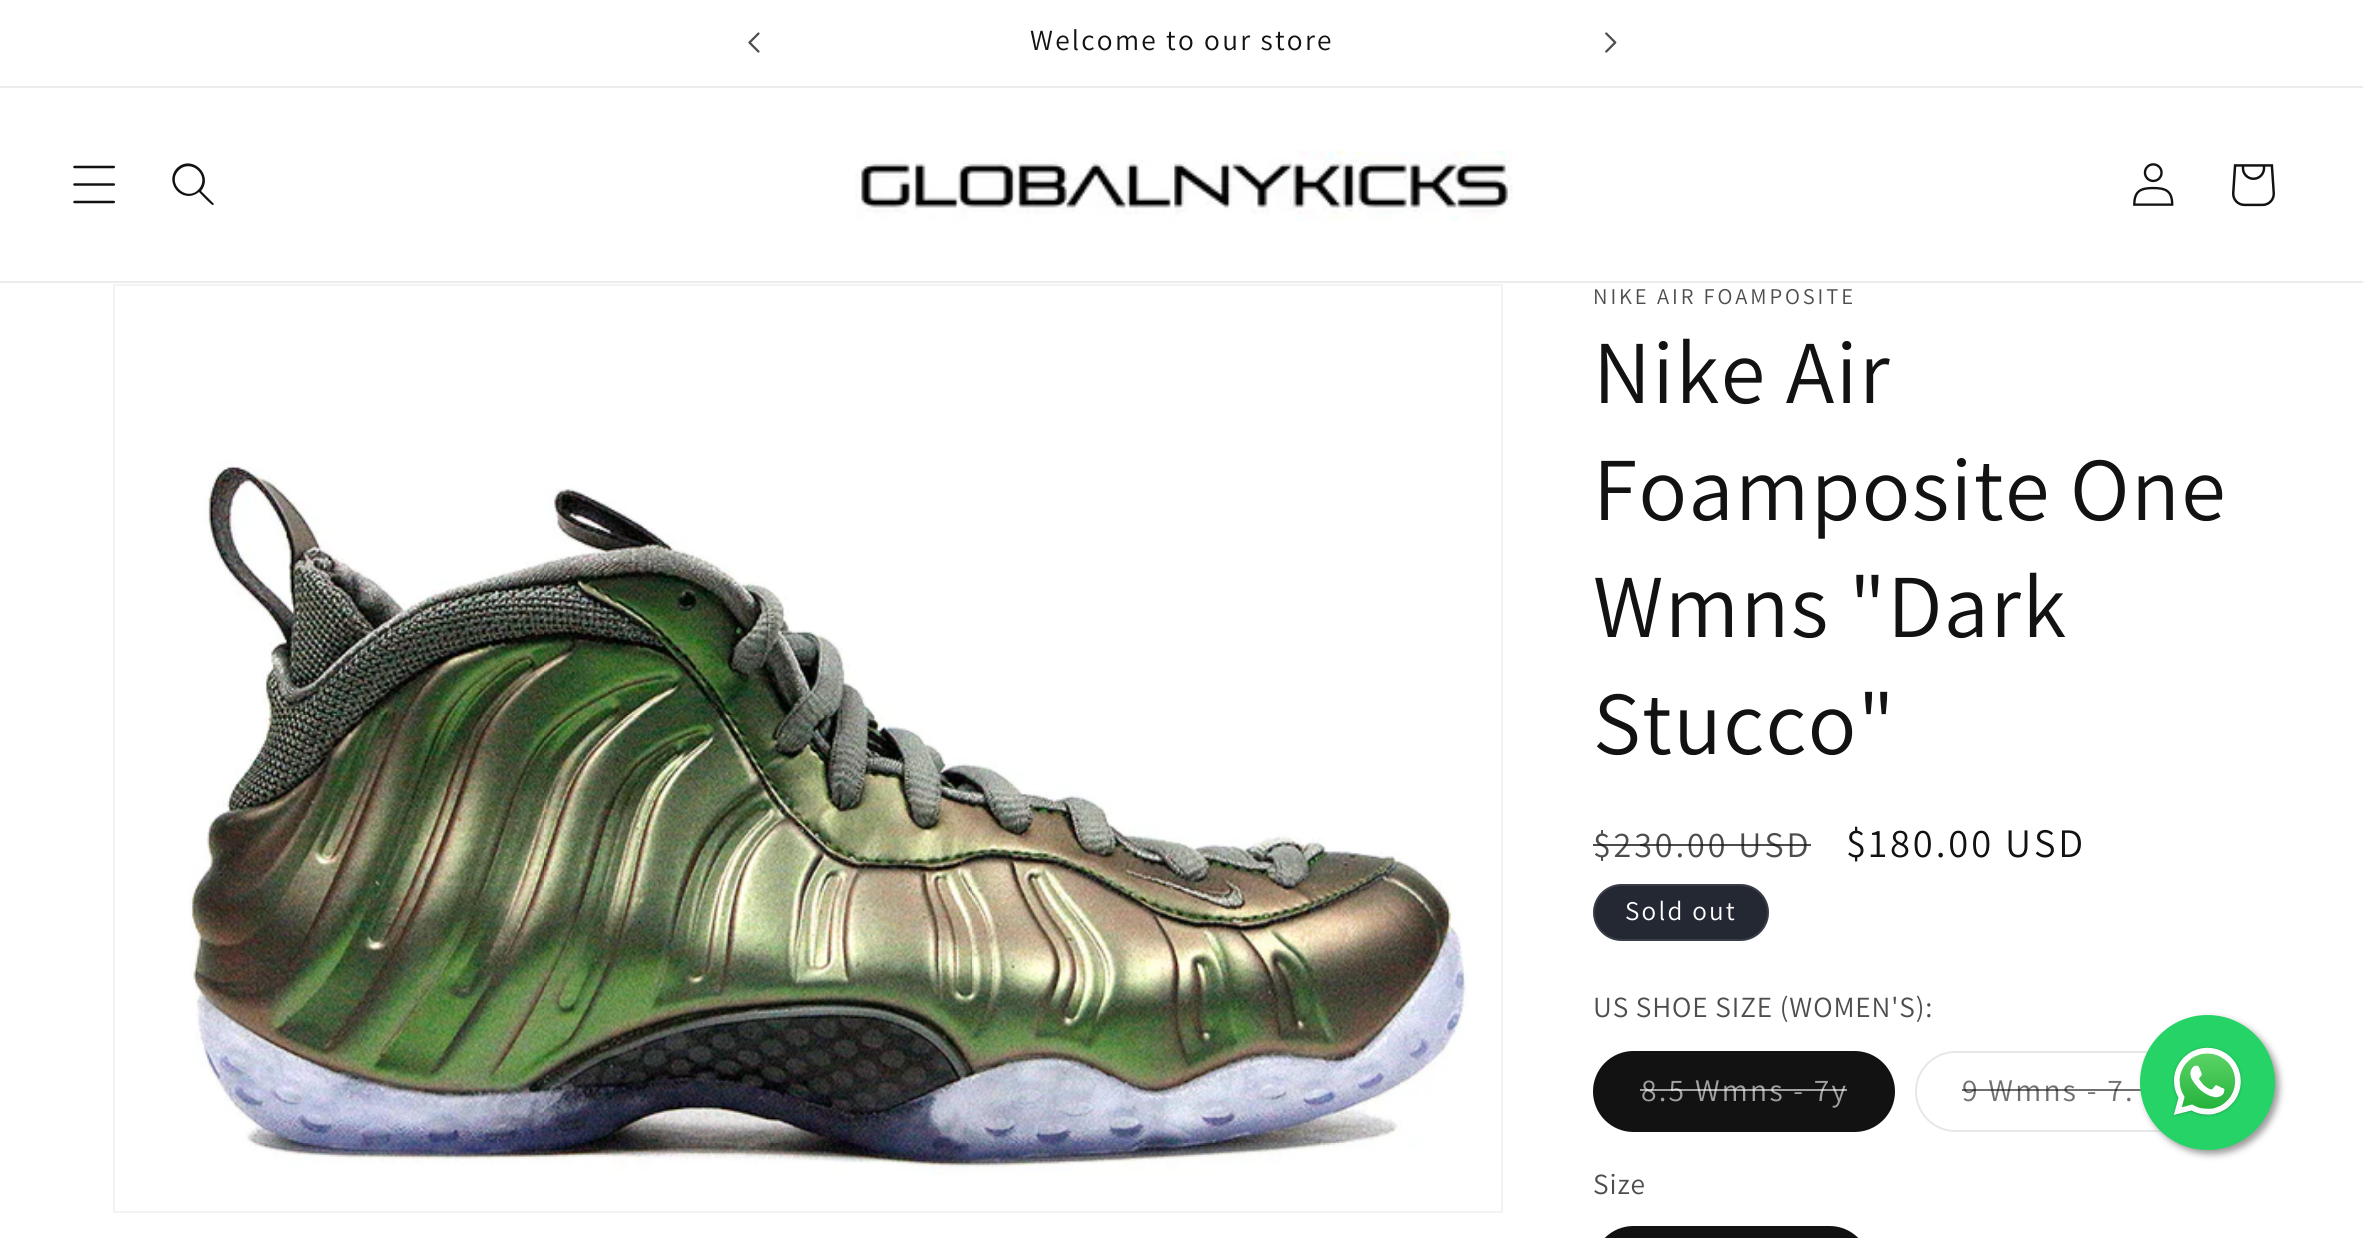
#include <cairo/cairo.h>
#include <math.h>
#include <stddef.h>

static cairo_t *cr;

static void use_color(int r, int g, int b) {
  cairo_set_source_rgb(cr, r / 255.0, g / 255.0, b / 255.0);
}

static void spaced_text(double x, double y, const char *s, double letter, double word) {
  cairo_move_to(cr, x, y);
  while (*s) {
    char ch[5] = {0};
    int n = 0;
    do ch[n++] = *s++; while ((*s & 0xC0) == 0x80);
    cairo_show_text(cr, ch);
    cairo_rel_move_to(cr, letter + word * (*ch == ' '), 0);
  }
}

static void box(double x, double y, double w, double h, int r, int g, int b) {
  use_color(r, g, b);
  cairo_rectangle(cr, x, y, w, h);
  cairo_fill(cr);
}

static void round_rect(double x, double y, double w, double h, double r) {
  cairo_new_sub_path(cr);
  cairo_arc(cr, x + w - r, y + h - r, r, 0, M_PI / 2);
  cairo_arc(cr, x + r, y + h - r, r, M_PI / 2, M_PI);
  cairo_arc(cr, x + r, y + r, r, M_PI, 1.5 * M_PI);
  cairo_arc(cr, x + w - r, y + r, r, 1.5 * M_PI, 2 * M_PI);
  cairo_close_path(cr);
}

static void shadow(double x, double y, double w, double h, double r, double blur, double alpha) {
  cairo_push_group_with_content(cr, CAIRO_CONTENT_ALPHA);
  cairo_set_operator(cr, CAIRO_OPERATOR_SOURCE);
  for (int i = 15; i >= -15 && fmin(w, h) + blur * i / 3 > 0; i -= 2) {
    double e = blur * i / 6;
    cairo_set_source_rgba(cr, 0, 0, 0, alpha * erfc((i - 1) / 8.5) / 2);
    round_rect(x - e, y - e, w + 2 * e, h + 2 * e, fmax(0, fmin(r + e + blur * .6, fmin(w, h) / 2 + e)));
    cairo_fill(cr);
  }
  cairo_pattern_t *soft = cairo_pop_group(cr);
  cairo_mask(cr, soft);
  cairo_pattern_destroy(soft);
}

static void picture(const char *path, double x, double y, double w, double h) {
  cairo_surface_t *image = cairo_image_surface_create_from_png(path);
  cairo_save(cr);
  cairo_set_source_surface(cr, image, x, y);
  cairo_rectangle(cr, x, y, w, h);
  cairo_fill(cr);
  cairo_restore(cr);
  cairo_surface_destroy(image);
}

static void draw(void) {
  use_color(255, 255, 255);
  cairo_paint(cr);
  box(0, 86, 2363, 2, 236, 236, 236);
  picture("img_01.png", 748, 32, 12, 21);
  picture("img_02.png", 1605, 32, 12, 21);
  box(0, 281, 2363, 2, 236, 236, 236);
  picture("img_03.png", 73, 165, 42, 39);
  use_color(18, 18, 18);
  cairo_set_fill_rule(cr, CAIRO_FILL_RULE_EVEN_ODD);
  cairo_new_path(cr);
  cairo_move_to(cr, 198, 190);
  cairo_curve_to(cr, 186, 202, 166, 183, 179, 170);
  cairo_curve_to(cr, 192, 158, 211, 177, 198, 190);
  cairo_close_path(cr);
  cairo_move_to(cr, 199, 192);
  cairo_curve_to(cr, 183, 205, 163, 183, 177, 168);
  cairo_curve_to(cr, 192, 154, 214, 175, 201, 191);
  cairo_line_to(cr, 214, 204);
  cairo_line_to(cr, 213, 205);
  cairo_curve_to(cr, 212, 206, 201, 194, 199, 192);
  cairo_close_path(cr);
  cairo_fill(cr);
  picture("img_04.png", 855, 150, 658, 71);
  picture("img_05.png", 2133, 163, 41, 43);
  picture("img_06.png", 2232, 164, 43, 43);
  cairo_rectangle(cr, 114, 285, 1388, 927);
  use_color(243, 243, 243);
  cairo_stroke(cr);
  picture("img_07.png", 189, 461, 1280, 714);
  use_color(36, 40, 51);
  round_rect(1593, 884, 176, 57, 28.5);
  cairo_fill(cr);
  round_rect(1594, 885, 174, 55, 27.5);
  cairo_set_source_rgba(cr, 1, 1, 1, 0.1);
  cairo_stroke(cr);
  use_color(18, 18, 18);
  round_rect(1593, 1051, 302, 81, 40.5);
  cairo_fill(cr);
  round_rect(1594, 1052, 300, 79, 39.5);
  cairo_set_source_rgba(cr, 0.071, 0.071, 0.071, 0.1);
  cairo_stroke(cr);
  round_rect(1916, 1052, 299, 79, 39.5);
  use_color(231, 231, 231);
  cairo_stroke(cr);
  use_color(18, 18, 18);
  round_rect(1593, 1226, 277, 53, 40.5);
  cairo_fill(cr);
  round_rect(1594, 1227, 275, 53, 39.5);
  cairo_set_source_rgba(cr, 0.071, 0.071, 0.071, 0.1);
  cairo_stroke(cr);
  cairo_select_font_face(cr, "Assistant", CAIRO_FONT_SLANT_NORMAL, CAIRO_FONT_WEIGHT_NORMAL);
  cairo_set_font_size(cr, 29.25);
  use_color(18, 18, 18);
  spaced_text(1030, 50, "Welcome to our store", 2.25, 0);
  cairo_set_font_size(cr, 22.5);
  use_color(77, 77, 77);
  spaced_text(1593, 304, "NIKE AIR FOAMPOSITE", 2.9, 0);
  cairo_set_font_size(cr, 90);
  use_color(18, 18, 18);
  spaced_text(1593, 403, "Nike Air", 1.4, 0);
  spaced_text(1593, 520, "Foamposite One", 1.4, 0);
  spaced_text(1593, 637, "Wmns \"Dark", 1.4, 0);
  spaced_text(1593, 754, "Stucco\"", 1.4, 0);
  cairo_set_font_size(cr, 36);
  use_color(77, 77, 77);
  spaced_text(1593, 857, "$230.00 USD", 2.9, 0);
  cairo_set_source_rgba(cr, 0.071, 0.071, 0.071, 0.75);
  cairo_rectangle(cr, 1593, 844, 218, 2);
  cairo_fill(cr);
  cairo_set_font_size(cr, 40.5);
  use_color(18, 18, 18);
  spaced_text(1846, 857, "$180.00 USD", 2.9, 0);
  cairo_set_font_size(cr, 27);
  use_color(255, 255, 255);
  spaced_text(1625, 920, "Sold out", 2.25, 0);
  cairo_set_font_size(cr, 29.25);
  use_color(77, 77, 77);
  spaced_text(1593, 1017, "US SHOE SIZE (WOMEN'S):", 0.9, 0);
  cairo_set_font_size(cr, 31.5);
  use_color(160, 160, 160);
  spaced_text(1641, 1101, "8.5 Wmns - 7y", 2.25, 0);
  cairo_set_source_rgba(cr, 1, 1, 1, 0.6);
  cairo_rectangle(cr, 1640, 1089, 207, 2);
  cairo_fill(cr);
  use_color(113, 113, 113);
  spaced_text(1962, 1101, "9 Wmns - 7.", 2.25, 0);
  cairo_set_source_rgba(cr, 0.071, 0.071, 0.071, 0.6);
  cairo_rectangle(cr, 1962, 1089, 179, 2);
  cairo_fill(cr);
  cairo_set_font_size(cr, 29.25);
  use_color(77, 77, 77);
  spaced_text(1593, 1194, "Size", 0.9, 0);
  use_color(153, 153, 153);
  shadow(2144, 1019, 135, 135, 67.5, 3.5, 1);
  use_color(37, 211, 102);
  cairo_arc(cr, 2207.5, 1082.5, 67.5, 0, 2 * M_PI);
  cairo_fill(cr);
  picture("img_08.png", 2172, 1046, 71, 71);
}

int main(void) {
  cairo_surface_t *surface = cairo_image_surface_create(CAIRO_FORMAT_RGB24, 2363, 1238);
  cr = cairo_create(surface);
  cairo_font_options_t *options = cairo_font_options_create();
  cairo_font_options_set_hint_metrics(options, CAIRO_HINT_METRICS_OFF);
  cairo_font_options_set_hint_style(options, CAIRO_HINT_STYLE_NONE);
  cairo_set_font_options(cr, options);
  cairo_set_miter_limit(cr, 4);
  draw();
  cairo_surface_write_to_png(surface, "out.png");
  cairo_font_options_destroy(options);
  cairo_destroy(cr);
  cairo_surface_destroy(surface);
  return 0;
}
